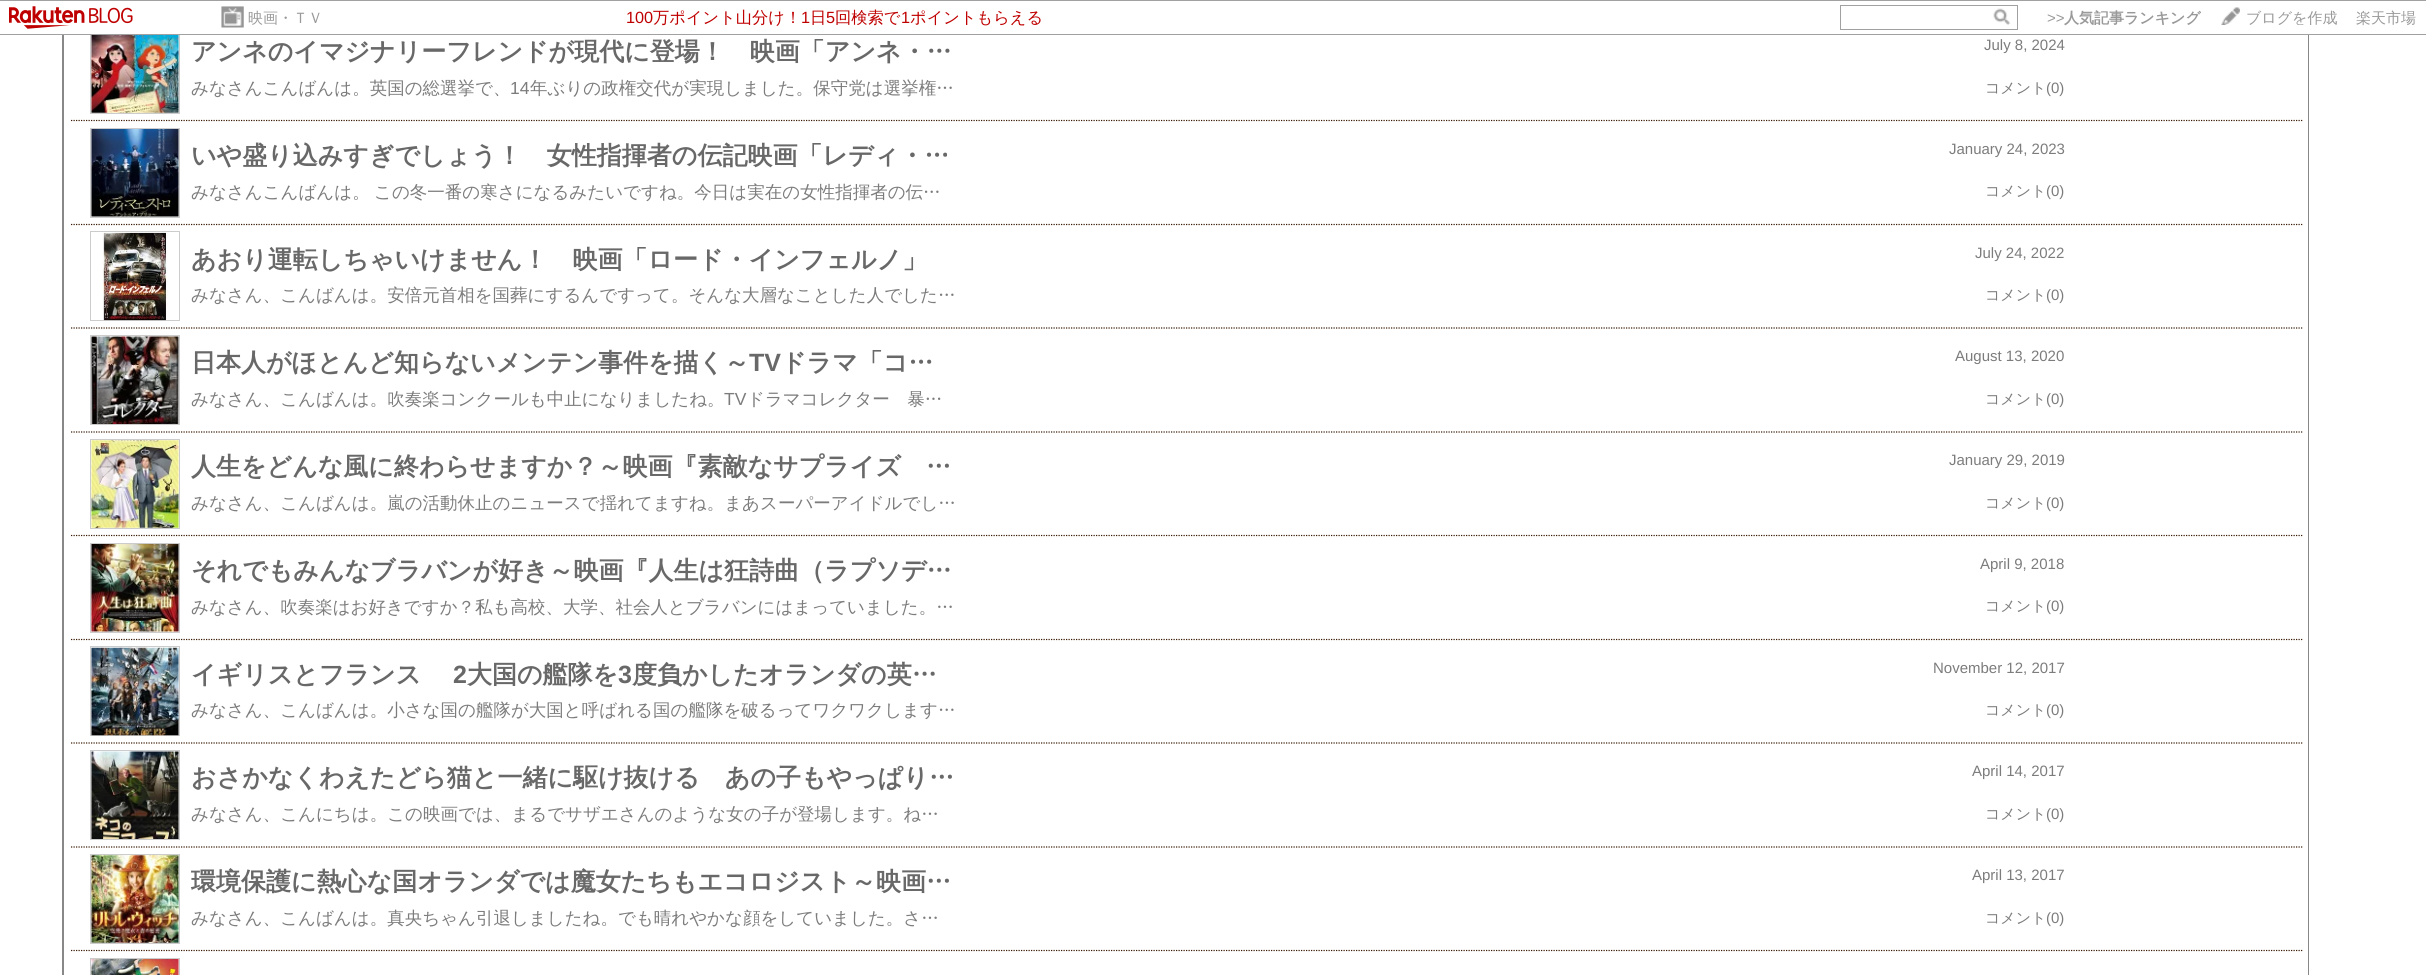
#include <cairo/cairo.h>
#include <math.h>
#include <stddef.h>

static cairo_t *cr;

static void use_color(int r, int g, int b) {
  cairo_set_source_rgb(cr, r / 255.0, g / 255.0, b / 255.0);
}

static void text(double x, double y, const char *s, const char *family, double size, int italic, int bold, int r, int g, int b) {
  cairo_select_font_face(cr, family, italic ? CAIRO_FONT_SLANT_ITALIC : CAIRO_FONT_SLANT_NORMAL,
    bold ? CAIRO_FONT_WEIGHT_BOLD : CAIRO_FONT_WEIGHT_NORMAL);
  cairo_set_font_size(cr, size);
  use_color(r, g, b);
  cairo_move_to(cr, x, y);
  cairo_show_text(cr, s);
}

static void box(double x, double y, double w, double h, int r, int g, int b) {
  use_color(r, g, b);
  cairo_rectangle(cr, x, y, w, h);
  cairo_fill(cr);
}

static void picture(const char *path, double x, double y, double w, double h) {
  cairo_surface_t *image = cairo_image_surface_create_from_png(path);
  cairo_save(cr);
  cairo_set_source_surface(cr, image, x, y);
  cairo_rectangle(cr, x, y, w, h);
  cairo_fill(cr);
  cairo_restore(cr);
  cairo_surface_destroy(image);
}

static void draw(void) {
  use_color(255, 255, 255);
  cairo_paint(cr);
  use_color(136, 136, 136);
  cairo_set_fill_rule(cr, CAIRO_FILL_RULE_EVEN_ODD);
  cairo_new_path(cr);
  cairo_move_to(cr, 62, -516);
  cairo_line_to(cr, 2309, -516);
  cairo_line_to(cr, 2309, 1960);
  cairo_curve_to(cr, 2309, 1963, 2307, 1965, 2304, 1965);
  cairo_line_to(cr, 68, 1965);
  cairo_curve_to(cr, 65, 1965, 62, 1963, 62, 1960);
  cairo_close_path(cr);
  cairo_move_to(cr, 64, -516);
  cairo_line_to(cr, 2308, -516);
  cairo_line_to(cr, 2308, 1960);
  cairo_curve_to(cr, 2308, 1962, 2306, 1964, 2304, 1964);
  cairo_line_to(cr, 68, 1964);
  cairo_curve_to(cr, 65, 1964, 64, 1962, 64, 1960);
  cairo_close_path(cr);
  cairo_fill(cr);
  cairo_rectangle(cr, 90.5, 24.5, 89, 89);
  use_color(204, 204, 204);
  cairo_set_line_width(cr, 1);
  cairo_stroke(cr);
  box(62, 1, 2247, 33, 255, 255, 255);
  box(0, 0, 2426, 1, 161, 161, 161);
  box(0, 34, 2426, 1, 161, 161, 161);
  picture("img_01.png", 9, 6, 124, 23);
  picture("img_02.png", 221, 6, 23, 22);
  cairo_rectangle(cr, 1840.5, 5.5, 177, 24);
  cairo_stroke(cr);
  picture("img_03.png", 1993, 8, 18, 17);
  picture("img_04.png", 2221, 7, 19, 18);
  cairo_new_path(cr);
  cairo_move_to(cr, 71, 120.5);
  cairo_line_to(cr, 2302.5, 120.5);
  use_color(57, 25, 3);
  cairo_set_line_width(cr, 1.2);
  cairo_set_dash(cr, (double[]){1.25, 1.25}, 2, 0);
  cairo_stroke(cr);
  picture("img_05.png", 91, 35, 88, 78);
  cairo_new_path(cr);
  cairo_move_to(cr, 71, 224.5);
  cairo_line_to(cr, 2302.5, 224.5);
  cairo_stroke(cr);
  cairo_rectangle(cr, 90.5, 128.5, 89, 89);
  use_color(204, 204, 204);
  cairo_set_line_width(cr, 1);
  cairo_set_dash(cr, NULL, 0, 0);
  cairo_stroke(cr);
  picture("img_06.png", 91, 129, 88, 88);
  cairo_new_path(cr);
  cairo_move_to(cr, 71, 328);
  cairo_line_to(cr, 2302.5, 328);
  use_color(57, 25, 3);
  cairo_set_line_width(cr, 1.2);
  cairo_set_dash(cr, (double[]){1.25, 1.25}, 2, 0);
  cairo_stroke(cr);
  cairo_rectangle(cr, 90.5, 231.5, 89, 89);
  use_color(204, 204, 204);
  cairo_set_line_width(cr, 1);
  cairo_set_dash(cr, NULL, 0, 0);
  cairo_stroke(cr);
  picture("img_07.png", 102, 232, 66, 89);
  cairo_new_path(cr);
  cairo_move_to(cr, 71, 432);
  cairo_line_to(cr, 2302.5, 432);
  use_color(57, 25, 3);
  cairo_set_line_width(cr, 1.2);
  cairo_set_dash(cr, (double[]){1.25, 1.25}, 2, 0);
  cairo_stroke(cr);
  cairo_rectangle(cr, 90.5, 335.5, 89, 89);
  use_color(204, 204, 204);
  cairo_set_line_width(cr, 1);
  cairo_set_dash(cr, NULL, 0, 0);
  cairo_stroke(cr);
  picture("img_08.png", 91, 336, 88, 88);
  cairo_new_path(cr);
  cairo_move_to(cr, 71, 535.5);
  cairo_line_to(cr, 2302.5, 535.5);
  use_color(57, 25, 3);
  cairo_set_line_width(cr, 1.2);
  cairo_set_dash(cr, (double[]){1.25, 1.25}, 2, 0);
  cairo_stroke(cr);
  cairo_rectangle(cr, 90.5, 439.5, 89, 89);
  use_color(204, 204, 204);
  cairo_set_line_width(cr, 1);
  cairo_set_dash(cr, NULL, 0, 0);
  cairo_stroke(cr);
  picture("img_09.png", 91, 440, 88, 88);
  cairo_new_path(cr);
  cairo_move_to(cr, 71, 639.5);
  cairo_line_to(cr, 2302.5, 639.5);
  use_color(57, 25, 3);
  cairo_set_line_width(cr, 1.2);
  cairo_set_dash(cr, (double[]){1.25, 1.25}, 2, 0);
  cairo_stroke(cr);
  cairo_rectangle(cr, 90.5, 543.5, 89, 89);
  use_color(204, 204, 204);
  cairo_set_line_width(cr, 1);
  cairo_set_dash(cr, NULL, 0, 0);
  cairo_stroke(cr);
  picture("img_10.png", 91, 544, 88, 88);
  cairo_new_path(cr);
  cairo_move_to(cr, 71, 743);
  cairo_line_to(cr, 2302.5, 743);
  use_color(57, 25, 3);
  cairo_set_line_width(cr, 1.2);
  cairo_set_dash(cr, (double[]){1.25, 1.25}, 2, 0);
  cairo_stroke(cr);
  cairo_rectangle(cr, 90.5, 646.5, 89, 89);
  use_color(204, 204, 204);
  cairo_set_line_width(cr, 1);
  cairo_set_dash(cr, NULL, 0, 0);
  cairo_stroke(cr);
  picture("img_11.png", 91, 647, 88, 89);
  cairo_new_path(cr);
  cairo_move_to(cr, 71, 847);
  cairo_line_to(cr, 2302.5, 847);
  use_color(57, 25, 3);
  cairo_set_line_width(cr, 1.2);
  cairo_set_dash(cr, (double[]){1.25, 1.25}, 2, 0);
  cairo_stroke(cr);
  cairo_rectangle(cr, 90.5, 750.5, 89, 89);
  use_color(204, 204, 204);
  cairo_set_line_width(cr, 1);
  cairo_set_dash(cr, NULL, 0, 0);
  cairo_stroke(cr);
  picture("img_12.png", 91, 751, 88, 88);
  cairo_new_path(cr);
  cairo_move_to(cr, 71, 950.5);
  cairo_line_to(cr, 2302.5, 950.5);
  use_color(57, 25, 3);
  cairo_set_line_width(cr, 1.2);
  cairo_set_dash(cr, (double[]){1.25, 1.25}, 2, 0);
  cairo_stroke(cr);
  cairo_rectangle(cr, 90.5, 854.5, 89, 89);
  use_color(204, 204, 204);
  cairo_set_line_width(cr, 1);
  cairo_set_dash(cr, NULL, 0, 0);
  cairo_stroke(cr);
  picture("img_13.png", 91, 855, 88, 88);
  cairo_rectangle(cr, 90.5, 958.5, 89, 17);
  cairo_stroke(cr);
  picture("img_14.png", 91, 959, 88, 16);
  text(248, 23, "映画・ＴＶ", "WenQuanYi Zen Hei Medium", 15, 0, 0, 153, 153, 153);
  text(626, 23, "100", "Liberation Sans", 16.25, 0, 0, 191, 0, 0);
  text(653, 23, "万ポイント山分け！", "WenQuanYi Zen Hei Medium", 16.25, 0, 0, 191, 0, 0);
  text(801, 23, "1", "Liberation Sans", 16.25, 0, 0, 191, 0, 0);
  text(810, 23, "日", "WenQuanYi Zen Hei Medium", 16.25, 0, 0, 191, 0, 0);
  text(826, 23, "5", "Liberation Sans", 16.25, 0, 0, 191, 0, 0);
  text(835, 23, "回検索で", "WenQuanYi Zen Hei Medium", 16.25, 0, 0, 191, 0, 0);
  text(901, 23, "1", "Liberation Sans", 16.25, 0, 0, 191, 0, 0);
  text(910, 23, "ポイントもらえる", "WenQuanYi Zen Hei Medium", 16.25, 0, 0, 191, 0, 0);
  text(2047, 23, ">>", "Liberation Sans", 15, 0, 0, 153, 153, 153);
  text(2064, 23, "人気記事ランキング", "WenQuanYi Zen Hei", 15, 0, 1, 153, 153, 153);
  cairo_save(cr);
  cairo_set_fill_rule(cr, CAIRO_FILL_RULE_WINDING);
  cairo_rectangle(cr, 2046, 5, 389, 20);
  cairo_clip(cr);
  text(2246, 23, "ブログを作成", "WenQuanYi Zen Hei Medium", 15, 0, 0, 153, 153, 153);
  cairo_restore(cr);
  text(2356, 23, "楽天市場", "WenQuanYi Zen Hei Medium", 15, 0, 0, 153, 153, 153);
  text(191, 60, "アンネのイマジナリーフレンドが現代に登場！　映画「アンネ・…", "WenQuanYi Zen Hei", 25, 0, 1, 104, 104, 104);
  text(191, 94, "みなさんこんばんは。英国の総選挙で、", "WenQuanYi Zen Hei Medium", 17.5, 0, 0, 124, 124, 124);
  text(510, 94, "14", "Liberation Sans", 17.5, 0, 0, 124, 124, 124);
  text(530, 94, "年ぶりの政権交代が実現しました。保守党は選挙権…", "WenQuanYi Zen Hei Medium", 17.5, 0, 0, 124, 124, 124);
  text(1984, 50, "July 8, 2024", "Liberation Sans", 15, 0, 0, 124, 124, 124);
  text(1985, 93, "コメント", "WenQuanYi Zen Hei Medium", 15, 0, 0, 124, 124, 124);
  text(2046, 93, "(0)", "Liberation Sans", 15, 0, 0, 124, 124, 124);
  text(191, 164, "いや盛り込みすぎでしょう！　女性指揮者の伝記映画「レディ・…", "WenQuanYi Zen Hei", 25, 0, 1, 104, 104, 104);
  text(191, 198, "みなさんこんばんは。", "WenQuanYi Zen Hei Medium", 17.5, 0, 0, 124, 124, 124);
  text(374, 198, "この冬一番の寒さになるみたいですね。今日は実在の女性指揮者の伝…", "WenQuanYi Zen Hei Medium", 17.5, 0, 0, 124, 124, 124);
  text(1949, 154, "January 24, 2023", "Liberation Sans", 15, 0, 0, 124, 124, 124);
  text(1985, 196, "コメント", "WenQuanYi Zen Hei Medium", 15, 0, 0, 124, 124, 124);
  text(2046, 196, "(0)", "Liberation Sans", 15, 0, 0, 124, 124, 124);
  text(191, 268, "あおり運転しちゃいけません！　映画「ロード・インフェルノ」", "WenQuanYi Zen Hei", 25, 0, 1, 104, 104, 104);
  text(191, 301, "みなさん、こんばんは。安倍元首相を国葬にするんですって。そんな大層なことした人でした…", "WenQuanYi Zen Hei Medium", 17.5, 0, 0, 124, 124, 124);
  text(1975, 258, "July 24, 2022", "Liberation Sans", 15, 0, 0, 124, 124, 124);
  text(1985, 300, "コメント", "WenQuanYi Zen Hei Medium", 15, 0, 0, 124, 124, 124);
  text(2046, 300, "(0)", "Liberation Sans", 15, 0, 0, 124, 124, 124);
  text(191, 371, "日本人がほとんど知らないメンテン事件を描く～", "WenQuanYi Zen Hei", 25, 0, 1, 104, 104, 104);
  text(749, 371, "TV", "Liberation Sans", 25, 0, 1, 104, 104, 104);
  text(781, 371, "ドラマ「コ…", "WenQuanYi Zen Hei", 25, 0, 1, 104, 104, 104);
  text(191, 405, "みなさん、こんばんは。吹奏楽コンクールも中止になりましたね。", "WenQuanYi Zen Hei Medium", 17.5, 0, 0, 124, 124, 124);
  text(724, 405, "TV", "Liberation Sans", 17.5, 0, 0, 124, 124, 124);
  text(747, 405, "ドラマコレクター　暴…", "WenQuanYi Zen Hei Medium", 17.5, 0, 0, 124, 124, 124);
  text(1955, 361, "August 13, 2020", "Liberation Sans", 15, 0, 0, 124, 124, 124);
  text(1985, 404, "コメント", "WenQuanYi Zen Hei Medium", 15, 0, 0, 124, 124, 124);
  text(2046, 404, "(0)", "Liberation Sans", 15, 0, 0, 124, 124, 124);
  text(191, 475, "人生をどんな風に終わらせますか？～映画『素敵なサプライズ　…", "WenQuanYi Zen Hei", 25, 0, 1, 104, 104, 104);
  text(191, 509, "みなさん、こんばんは。嵐の活動休止のニュースで揺れてますね。まあスーパーアイドルでし…", "WenQuanYi Zen Hei Medium", 17.5, 0, 0, 124, 124, 124);
  text(1949, 465, "January 29, 2019", "Liberation Sans", 15, 0, 0, 124, 124, 124);
  text(1985, 508, "コメント", "WenQuanYi Zen Hei Medium", 15, 0, 0, 124, 124, 124);
  text(2046, 508, "(0)", "Liberation Sans", 15, 0, 0, 124, 124, 124);
  text(191, 579, "それでもみんなブラバンが好き～映画『人生は狂詩曲（ラプソデ…", "WenQuanYi Zen Hei", 25, 0, 1, 104, 104, 104);
  text(191, 613, "みなさん、吹奏楽はお好きですか？私も高校、大学、社会人とブラバンにはまっていました。…", "WenQuanYi Zen Hei Medium", 17.5, 0, 0, 124, 124, 124);
  text(1980, 569, "April 9, 2018", "Liberation Sans", 15, 0, 0, 124, 124, 124);
  text(1985, 611, "コメント", "WenQuanYi Zen Hei Medium", 15, 0, 0, 124, 124, 124);
  text(2046, 611, "(0)", "Liberation Sans", 15, 0, 0, 124, 124, 124);
  text(191, 683, "イギリスとフランス", "WenQuanYi Zen Hei", 25, 0, 1, 104, 104, 104);
  text(453, 683, "2", "Liberation Sans", 25, 0, 1, 104, 104, 104);
  text(467, 683, "大国の艦隊を", "WenQuanYi Zen Hei", 25, 0, 1, 104, 104, 104);
  text(618, 683, "3", "Liberation Sans", 25, 0, 1, 104, 104, 104);
  text(632, 683, "度負かしたオランダの英…", "WenQuanYi Zen Hei", 25, 0, 1, 104, 104, 104);
  text(191, 716, "みなさん、こんばんは。小さな国の艦隊が大国と呼ばれる国の艦隊を破るってワクワクします…", "WenQuanYi Zen Hei Medium", 17.5, 0, 0, 124, 124, 124);
  text(1933, 673, "November 12, 2017", "Liberation Sans", 15, 0, 0, 124, 124, 124);
  text(1985, 715, "コメント", "WenQuanYi Zen Hei Medium", 15, 0, 0, 124, 124, 124);
  text(2046, 715, "(0)", "Liberation Sans", 15, 0, 0, 124, 124, 124);
  text(191, 786, "おさかなくわえたどら猫と一緒に駆け抜ける　あの子もやっぱり…", "WenQuanYi Zen Hei", 25, 0, 1, 104, 104, 104);
  text(191, 820, "みなさん、こんにちは。この映画では、まるでサザエさんのような女の子が登場します。ね…", "WenQuanYi Zen Hei Medium", 17.5, 0, 0, 124, 124, 124);
  text(1972, 776, "April 14, 2017", "Liberation Sans", 15, 0, 0, 124, 124, 124);
  text(1985, 819, "コメント", "WenQuanYi Zen Hei Medium", 15, 0, 0, 124, 124, 124);
  text(2046, 819, "(0)", "Liberation Sans", 15, 0, 0, 124, 124, 124);
  text(191, 890, "環境保護に熱心な国オランダでは魔女たちもエコロジスト～映画…", "WenQuanYi Zen Hei", 25, 0, 1, 104, 104, 104);
  text(191, 924, "みなさん、こんばんは。真央ちゃん引退しましたね。でも晴れやかな顔をしていました。さ…", "WenQuanYi Zen Hei Medium", 17.5, 0, 0, 124, 124, 124);
  text(1972, 880, "April 13, 2017", "Liberation Sans", 15, 0, 0, 124, 124, 124);
  text(1985, 923, "コメント", "WenQuanYi Zen Hei Medium", 15, 0, 0, 124, 124, 124);
  text(2046, 923, "(0)", "Liberation Sans", 15, 0, 0, 124, 124, 124);
}

int main(void) {
  cairo_surface_t *surface = cairo_image_surface_create(CAIRO_FORMAT_RGB24, 2426, 975);
  cr = cairo_create(surface);
  cairo_font_options_t *options = cairo_font_options_create();
  cairo_font_options_set_hint_metrics(options, CAIRO_HINT_METRICS_OFF);
  cairo_font_options_set_hint_style(options, CAIRO_HINT_STYLE_NONE);
  cairo_set_font_options(cr, options);
  cairo_set_miter_limit(cr, 4);
  draw();
  cairo_surface_write_to_png(surface, "out.png");
  cairo_font_options_destroy(options);
  cairo_destroy(cr);
  cairo_surface_destroy(surface);
  return 0;
}
